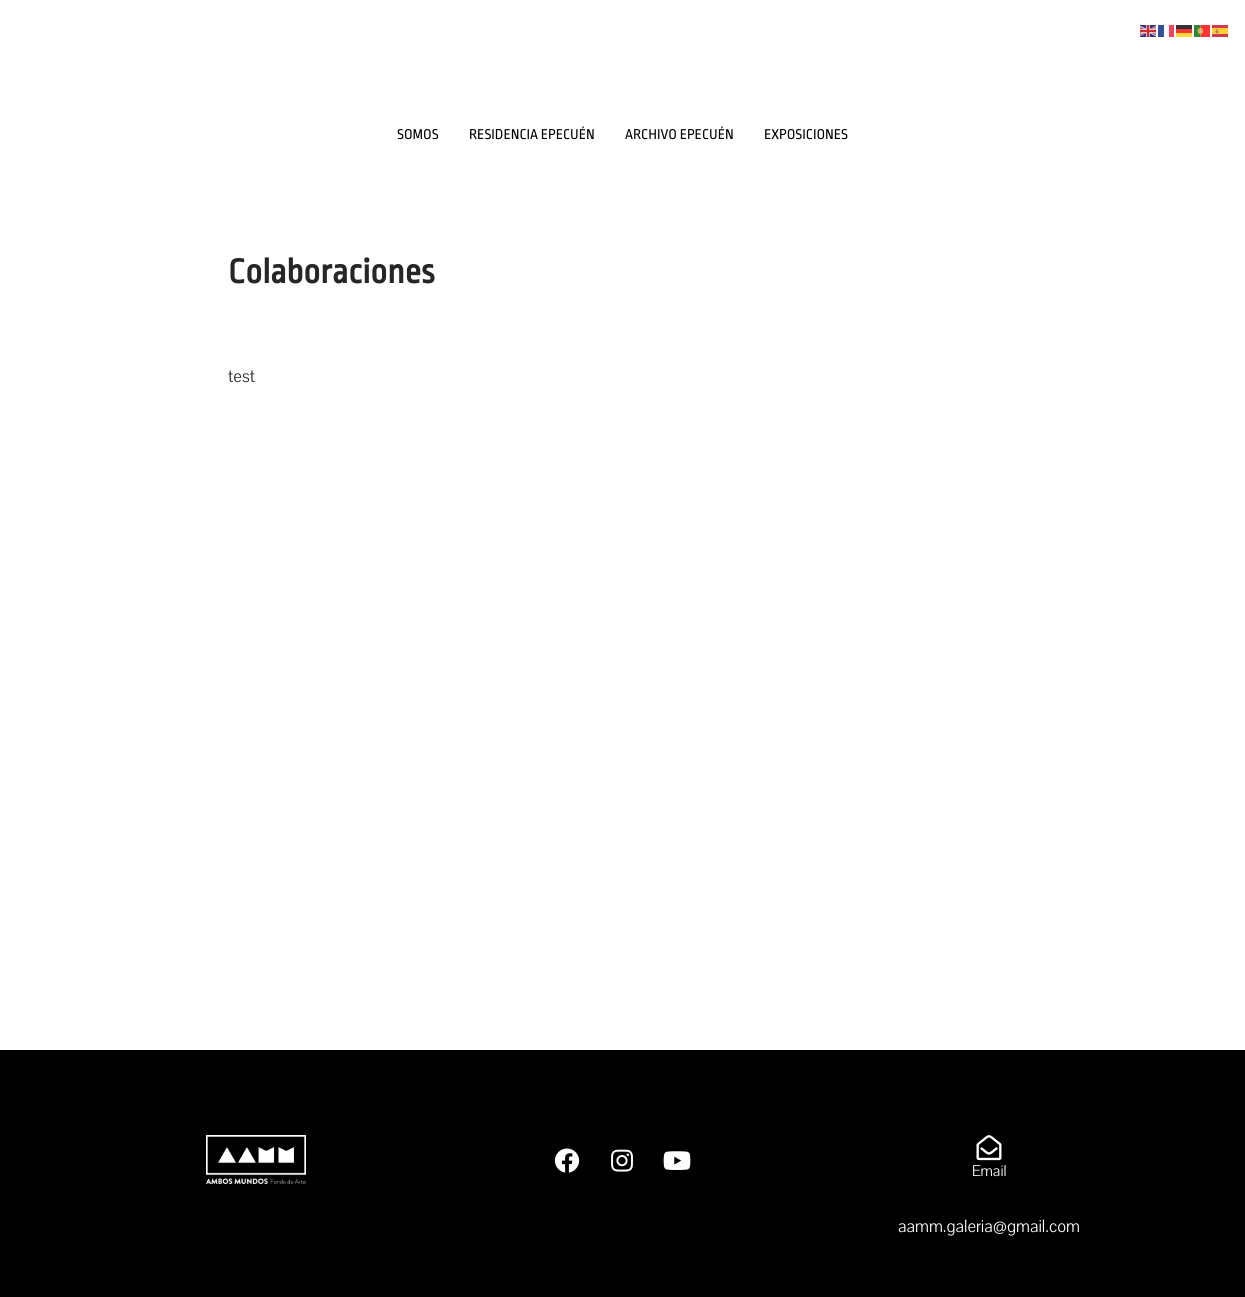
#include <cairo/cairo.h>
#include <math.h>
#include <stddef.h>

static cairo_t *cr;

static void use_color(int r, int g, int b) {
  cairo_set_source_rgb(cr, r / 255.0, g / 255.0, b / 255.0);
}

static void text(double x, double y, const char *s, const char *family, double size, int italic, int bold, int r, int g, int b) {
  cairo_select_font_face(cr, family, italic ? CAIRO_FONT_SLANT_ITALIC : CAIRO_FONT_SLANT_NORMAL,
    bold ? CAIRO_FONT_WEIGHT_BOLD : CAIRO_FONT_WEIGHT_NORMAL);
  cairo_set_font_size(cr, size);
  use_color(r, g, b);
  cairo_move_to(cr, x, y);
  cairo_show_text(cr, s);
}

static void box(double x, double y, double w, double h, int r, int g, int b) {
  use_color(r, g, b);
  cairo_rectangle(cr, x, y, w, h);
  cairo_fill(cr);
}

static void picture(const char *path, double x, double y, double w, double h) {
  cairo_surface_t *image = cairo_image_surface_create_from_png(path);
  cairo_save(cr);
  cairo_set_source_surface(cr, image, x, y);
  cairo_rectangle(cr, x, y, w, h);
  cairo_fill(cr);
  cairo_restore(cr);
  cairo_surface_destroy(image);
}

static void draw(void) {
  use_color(255, 255, 255);
  cairo_paint(cr);
  picture("img_01.png", 1140, 25, 16, 12);
  box(1158, 25, 6, 12, 51, 81, 153);
  box(1169, 25, 5, 12, 245, 70, 89);
  box(1176, 25, 16, 4, 51, 51, 51);
  picture("img_02.png", 1194, 25, 16, 12);
  picture("img_03.png", 1212, 25, 16, 12);
  box(1176, 29, 16, 4, 255, 51, 51);
  box(1176, 33, 16, 4, 255, 214, 51);
  box(0, 1050, 1245, 247, 0, 0, 0);
  picture("img_04.png", 206, 1135, 100, 49);
  picture("img_05.png", 554, 1148, 26, 25);
  picture("img_06.png", 611, 1149, 22, 23);
  picture("img_07.png", 663, 1151, 28, 19);
  picture("img_08.png", 976, 1135, 26, 26);
  text(397, 139, "SOMOS", "Ropa Sans", 15, 0, 0, 0, 0, 0);
  text(469, 139, "RESIDENCIA EPECUÉN", "Ropa Sans", 15, 0, 0, 0, 0, 0);
  text(625, 139, "ARCHIVO EPECUÉN", "Ropa Sans", 15, 0, 0, 0, 0, 0);
  text(764, 139, "EXPOSICIONES", "Ropa Sans", 15, 0, 0, 0, 0, 0);
  text(228, 283, "Colaboraciones", "Ropa Sans", 36, 0, 1, 39, 38, 38);
  text(228, 382, "test", "Pavanam", 18, 0, 0, 39, 38, 38);
  text(972, 1176, "Email", "Pavanam", 16, 0, 0, 255, 255, 255);
  text(898, 1232, "aamm.galeria@gmail.com", "Pavanam", 18, 0, 0, 255, 255, 255);
}

int main(void) {
  cairo_surface_t *surface = cairo_image_surface_create(CAIRO_FORMAT_RGB24, 1245, 1297);
  cr = cairo_create(surface);
  cairo_font_options_t *options = cairo_font_options_create();
  cairo_font_options_set_hint_metrics(options, CAIRO_HINT_METRICS_OFF);
  cairo_font_options_set_hint_style(options, CAIRO_HINT_STYLE_NONE);
  cairo_set_font_options(cr, options);
  cairo_set_miter_limit(cr, 4);
  draw();
  cairo_surface_write_to_png(surface, "out.png");
  cairo_font_options_destroy(options);
  cairo_destroy(cr);
  cairo_surface_destroy(surface);
  return 0;
}
